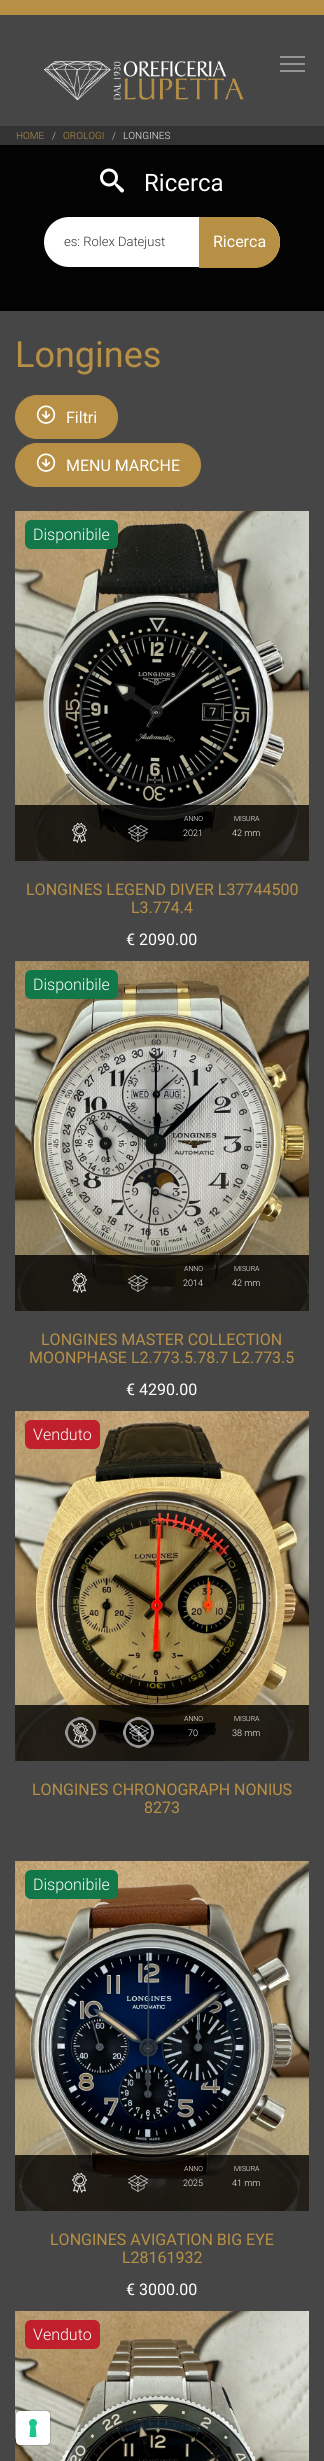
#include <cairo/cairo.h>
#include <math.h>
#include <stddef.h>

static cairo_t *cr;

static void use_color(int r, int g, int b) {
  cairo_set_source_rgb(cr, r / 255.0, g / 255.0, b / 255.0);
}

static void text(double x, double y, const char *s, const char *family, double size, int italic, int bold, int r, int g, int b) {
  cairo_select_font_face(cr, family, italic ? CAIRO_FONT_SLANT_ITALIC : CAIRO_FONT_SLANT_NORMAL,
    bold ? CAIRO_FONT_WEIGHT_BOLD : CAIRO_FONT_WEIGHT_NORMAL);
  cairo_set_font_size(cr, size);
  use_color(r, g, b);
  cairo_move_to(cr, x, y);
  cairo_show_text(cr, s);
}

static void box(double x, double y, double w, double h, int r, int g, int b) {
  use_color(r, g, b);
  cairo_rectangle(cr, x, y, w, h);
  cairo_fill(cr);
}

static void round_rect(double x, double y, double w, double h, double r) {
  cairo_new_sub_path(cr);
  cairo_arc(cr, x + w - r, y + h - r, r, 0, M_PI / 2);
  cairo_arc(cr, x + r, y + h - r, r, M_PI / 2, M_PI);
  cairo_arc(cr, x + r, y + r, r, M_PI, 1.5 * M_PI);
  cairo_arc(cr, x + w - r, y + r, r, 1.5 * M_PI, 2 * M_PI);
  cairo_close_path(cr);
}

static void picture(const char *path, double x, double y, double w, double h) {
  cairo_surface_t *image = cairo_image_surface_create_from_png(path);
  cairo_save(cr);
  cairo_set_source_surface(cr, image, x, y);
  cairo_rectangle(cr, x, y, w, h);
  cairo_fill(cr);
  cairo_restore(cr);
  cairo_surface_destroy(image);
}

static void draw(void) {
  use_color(70, 70, 70);
  cairo_paint(cr);
  box(0, 0, 324, 15, 183, 144, 70);
  picture("img_01.png", 44, 61, 200, 39);
  box(280, 63, 25, 2, 148, 148, 148);
  box(280, 56, 25, 2, 148, 148, 148);
  box(280, 70, 25, 2, 148, 148, 148);
  box(0, 126, 324, 19, 51, 51, 51);
  box(0, 145, 324, 166, 3, 3, 3);
  picture("img_02.png", 100, 168, 24, 25);
  use_color(255, 255, 255);
  round_rect(44, 217, 236, 50, 25);
  cairo_fill(cr);
  use_color(183, 144, 70);
  cairo_new_path(cr);
  cairo_move_to(cr, 199, 217);
  cairo_line_to(cr, 254.5, 217);
  cairo_curve_to(cr, 268.5, 217, 280, 228.5, 280, 242.5);
  cairo_curve_to(cr, 280, 256.5, 268.5, 268, 254.5, 268);
  cairo_line_to(cr, 199, 268);
  cairo_close_path(cr);
  cairo_fill(cr);
  round_rect(15.5, 395.5, 102, 43, 21.5);
  cairo_fill_preserve(cr);
  cairo_set_line_width(cr, 1);
  cairo_stroke(cr);
  picture("img_03.png", 36, 405, 20, 19);
  round_rect(15.5, 443.5, 185, 43, 21.5);
  cairo_fill_preserve(cr);
  cairo_stroke(cr);
  picture("img_03.png", 36, 453, 20, 19);
  picture("img_04.png", 15, 511, 294, 350);
  use_color(18, 119, 73);
  round_rect(25, 520, 93, 29, 6);
  cairo_fill(cr);
  cairo_set_source_rgba(cr, 0, 0, 0, 0.8);
  cairo_rectangle(cr, 15, 805, 294, 56);
  cairo_fill(cr);
  picture("img_05.png", 72, 823, 15, 20);
  picture("img_06.png", 128, 825, 20, 17);
  picture("img_07.png", 15, 961, 294, 350);
  use_color(18, 119, 73);
  round_rect(25, 970, 93, 29, 6);
  cairo_fill(cr);
  cairo_set_source_rgba(cr, 0, 0, 0, 0.8);
  cairo_rectangle(cr, 15, 1255, 294, 56);
  cairo_fill(cr);
  picture("img_08.png", 72, 1273, 15, 20);
  picture("img_09.png", 128, 1275, 20, 17);
  picture("img_10.png", 15, 1411, 294, 350);
  use_color(191, 32, 44);
  round_rect(25, 1420, 75, 29, 6);
  cairo_fill(cr);
  cairo_set_source_rgba(cr, 0, 0, 0, 0.8);
  cairo_rectangle(cr, 15, 1705, 294, 56);
  cairo_fill(cr);
  picture("img_11.png", 65, 1717, 31, 31);
  picture("img_12.png", 123, 1717, 31, 31);
  picture("img_13.png", 15, 1861, 294, 350);
  use_color(18, 119, 73);
  round_rect(25, 1870, 93, 29, 6);
  cairo_fill(cr);
  cairo_set_source_rgba(cr, 0, 0, 0, 0.8);
  cairo_rectangle(cr, 15, 2155, 294, 56);
  cairo_fill(cr);
  picture("img_14.png", 72, 2173, 15, 20);
  picture("img_15.png", 128, 2175, 20, 17);
  picture("img_16.png", 15, 2311, 294, 150);
  use_color(191, 32, 44);
  round_rect(25, 2320, 75, 29, 6);
  cairo_fill(cr);
  round_rect(15.5, 2410.5, 35, 35, 4.5);
  cairo_set_source_rgba(cr, 0, 0, 0, 0.15);
  cairo_stroke(cr);
  use_color(255, 255, 255);
  round_rect(16, 2411, 34, 34, 4);
  cairo_fill(cr);
  picture("img_17.png", 29, 2419, 8, 18);
  text(16, 139, "HOME", "Roboto Light", 10, 0, 0, 183, 144, 70);
  text(52, 139, "/", "Roboto Light", 10, 0, 0, 204, 204, 204);
  text(63, 139, "OROLOGI", "Roboto Light", 10, 0, 0, 183, 144, 70);
  text(112, 139, "/", "Roboto Light", 10, 0, 0, 204, 204, 204);
  text(123, 139, "LONGINES", "Roboto Light", 10, 0, 0, 238, 238, 238);
  text(144, 191, "Ricerca", "Roboto", 24, 0, 0, 255, 255, 255);
  text(64, 246, "es: Rolex Datejust", "Roboto Light", 13, 0, 0, 51, 51, 51);
  text(213, 247, "Ricerca", "Roboto", 16, 0, 0, 255, 255, 255);
  text(15, 367, "Longines", "Roboto", 36, 0, 0, 183, 144, 70);
  text(66, 423, "Filtri", "Roboto", 16, 0, 0, 255, 255, 255);
  text(66, 471, "MENU MARCHE", "Roboto", 16, 0, 0, 255, 255, 255);
  text(33, 540, "Disponibile", "Roboto Light", 16, 0, 0, 255, 255, 255);
  text(184, 821, "ANNO", "Roboto Light", 7, 0, 0, 255, 255, 255);
  text(183, 836, "2021", "Roboto Light", 9, 0, 0, 255, 255, 255);
  text(234, 821, "MISURA", "Roboto Light", 7, 0, 0, 255, 255, 255);
  text(232, 836, "42 mm", "Roboto Light", 9, 0, 0, 255, 255, 255);
  text(26, 895, "LONGINES LEGEND DIVER L37744500", "Roboto", 16, 0, 0, 183, 144, 70);
  text(131, 913, "L3.774.4", "Roboto", 16, 0, 0, 183, 144, 70);
  text(126, 945, "€ 2090.00", "Roboto", 16, 0, 0, 255, 255, 255);
  text(33, 990, "Disponibile", "Roboto Light", 16, 0, 0, 255, 255, 255);
  text(184, 1271, "ANNO", "Roboto Light", 7, 0, 0, 255, 255, 255);
  text(183, 1286, "2014", "Roboto Light", 9, 0, 0, 255, 255, 255);
  text(234, 1271, "MISURA", "Roboto Light", 7, 0, 0, 255, 255, 255);
  text(232, 1286, "42 mm", "Roboto Light", 9, 0, 0, 255, 255, 255);
  text(41, 1345, "LONGINES MASTER COLLECTION", "Roboto", 16, 0, 0, 183, 144, 70);
  text(29, 1363, "MOONPHASE L2.773.5.78.7 L2.773.5", "Roboto", 16, 0, 0, 183, 144, 70);
  text(126, 1395, "€ 4290.00", "Roboto", 16, 0, 0, 255, 255, 255);
  text(33, 1440, "Venduto", "Roboto Light", 16, 0, 0, 255, 255, 255);
  text(184, 1721, "ANNO", "Roboto Light", 7, 0, 0, 255, 255, 255);
  text(188, 1736, "70", "Roboto Light", 9, 0, 0, 255, 255, 255);
  text(234, 1721, "MISURA", "Roboto Light", 7, 0, 0, 255, 255, 255);
  text(232, 1736, "38 mm", "Roboto Light", 9, 0, 0, 255, 255, 255);
  text(32, 1795, "LONGINES CHRONOGRAPH NONIUS", "Roboto", 16, 0, 0, 183, 144, 70);
  text(144, 1813, "8273", "Roboto", 16, 0, 0, 183, 144, 70);
  text(33, 1890, "Disponibile", "Roboto Light", 16, 0, 0, 255, 255, 255);
  text(184, 2171, "ANNO", "Roboto Light", 7, 0, 0, 255, 255, 255);
  text(183, 2186, "2025", "Roboto Light", 9, 0, 0, 255, 255, 255);
  text(234, 2171, "MISURA", "Roboto Light", 7, 0, 0, 255, 255, 255);
  text(232, 2186, "41 mm", "Roboto Light", 9, 0, 0, 255, 255, 255);
  text(50, 2245, "LONGINES AVIGATION BIG EYE", "Roboto", 16, 0, 0, 183, 144, 70);
  text(122, 2263, "L28161932", "Roboto", 16, 0, 0, 183, 144, 70);
  text(126, 2295, "€ 3000.00", "Roboto", 16, 0, 0, 255, 255, 255);
  text(33, 2340, "Venduto", "Roboto Light", 16, 0, 0, 255, 255, 255);
}

int main(void) {
  cairo_surface_t *surface = cairo_image_surface_create(CAIRO_FORMAT_RGB24, 324, 2461);
  cr = cairo_create(surface);
  cairo_font_options_t *options = cairo_font_options_create();
  cairo_font_options_set_hint_metrics(options, CAIRO_HINT_METRICS_OFF);
  cairo_font_options_set_hint_style(options, CAIRO_HINT_STYLE_NONE);
  cairo_set_font_options(cr, options);
  cairo_set_miter_limit(cr, 4);
  draw();
  cairo_surface_write_to_png(surface, "out.png");
  cairo_font_options_destroy(options);
  cairo_destroy(cr);
  cairo_surface_destroy(surface);
  return 0;
}
